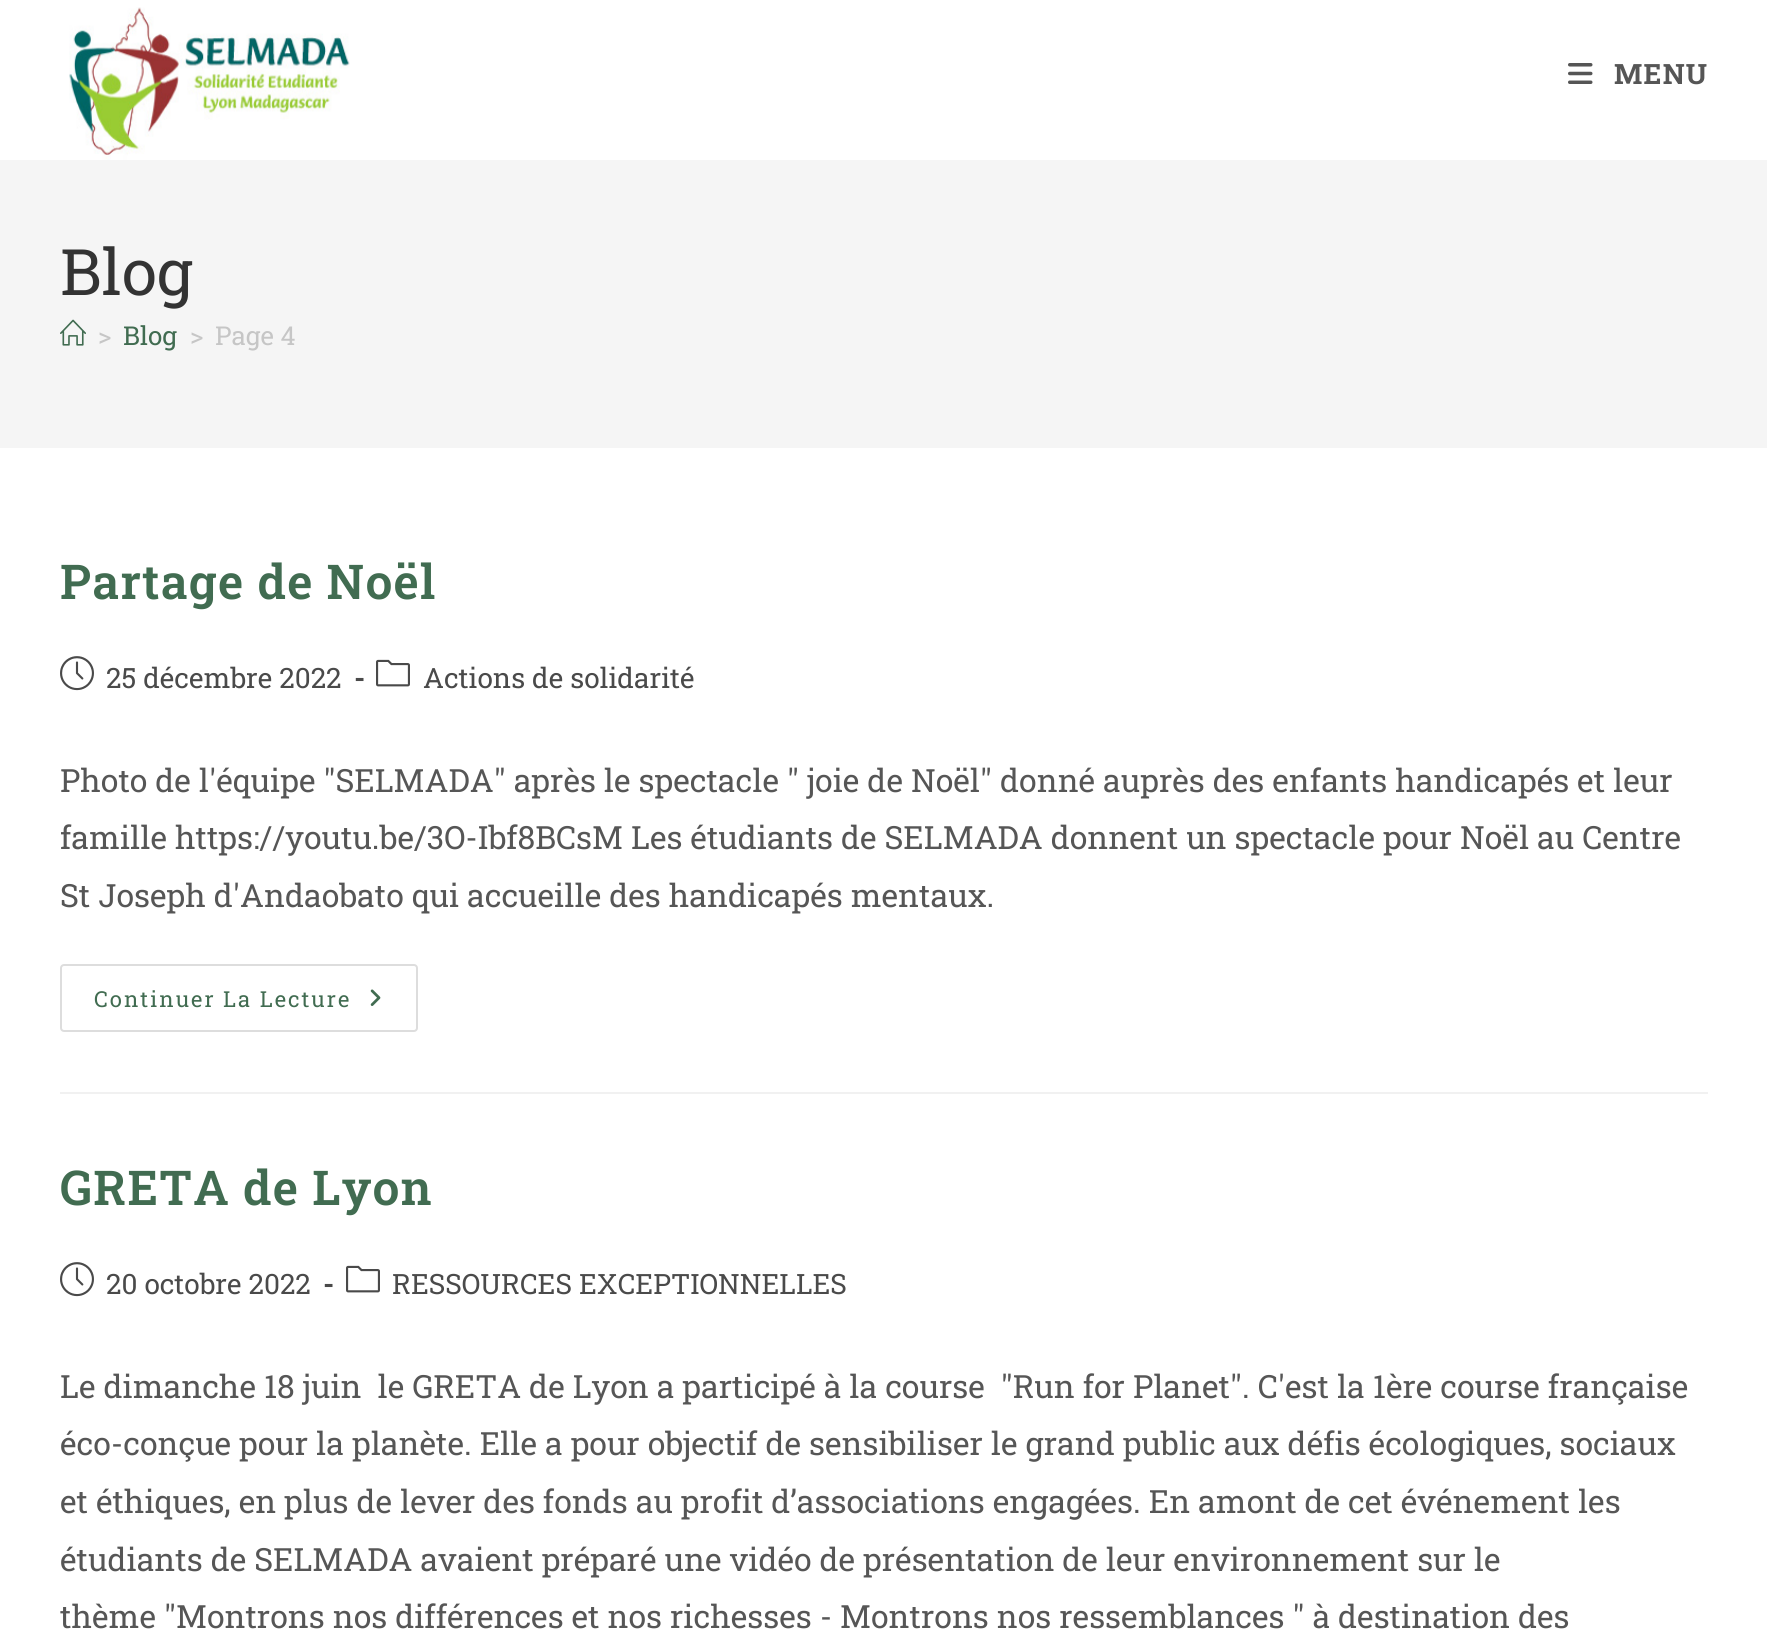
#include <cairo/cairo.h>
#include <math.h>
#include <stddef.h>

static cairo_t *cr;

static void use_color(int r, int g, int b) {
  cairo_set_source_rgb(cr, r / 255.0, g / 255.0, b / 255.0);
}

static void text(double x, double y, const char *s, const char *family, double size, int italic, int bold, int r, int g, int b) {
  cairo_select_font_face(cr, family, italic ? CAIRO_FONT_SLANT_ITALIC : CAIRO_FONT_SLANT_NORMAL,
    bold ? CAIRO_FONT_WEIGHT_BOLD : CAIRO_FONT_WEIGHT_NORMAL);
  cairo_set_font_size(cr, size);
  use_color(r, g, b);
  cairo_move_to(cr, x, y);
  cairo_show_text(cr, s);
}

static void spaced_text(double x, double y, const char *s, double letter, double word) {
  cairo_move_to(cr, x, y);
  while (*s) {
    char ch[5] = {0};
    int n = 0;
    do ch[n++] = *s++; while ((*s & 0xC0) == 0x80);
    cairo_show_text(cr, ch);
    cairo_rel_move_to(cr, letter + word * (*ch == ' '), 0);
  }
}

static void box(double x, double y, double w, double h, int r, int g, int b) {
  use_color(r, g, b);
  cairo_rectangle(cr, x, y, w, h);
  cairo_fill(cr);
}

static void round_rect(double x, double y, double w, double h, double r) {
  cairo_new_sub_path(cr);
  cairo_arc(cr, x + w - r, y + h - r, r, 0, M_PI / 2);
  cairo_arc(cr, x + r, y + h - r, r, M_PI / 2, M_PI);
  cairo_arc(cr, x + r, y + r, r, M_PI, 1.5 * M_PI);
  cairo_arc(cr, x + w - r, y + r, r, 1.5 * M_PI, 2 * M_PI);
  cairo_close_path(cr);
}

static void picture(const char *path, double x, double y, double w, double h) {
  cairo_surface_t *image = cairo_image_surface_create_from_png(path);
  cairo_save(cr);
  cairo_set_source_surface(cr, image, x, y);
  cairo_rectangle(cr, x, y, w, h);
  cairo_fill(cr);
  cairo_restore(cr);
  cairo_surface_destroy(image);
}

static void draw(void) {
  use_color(255, 255, 255);
  cairo_paint(cr);
  picture("img_01.png", 69, 7, 281, 153);
  picture("img_02.png", 1568, 63, 25, 21);
  box(0, 160, 1767, 288, 245, 245, 245);
  picture("img_03.png", 60, 319, 26, 27);
  box(60, 1092, 1648, 2, 241, 241, 241);
  picture("img_04.png", 60, 656, 34, 35);
  picture("img_05.png", 376, 659, 34, 28);
  round_rect(61, 965, 356, 66, 3);
  use_color(221, 221, 221);
  cairo_stroke(cr);
  picture("img_06.png", 370, 989, 11, 17);
  picture("img_04.png", 60, 1262, 34, 35);
  picture("img_05.png", 346, 1265, 34, 28);
  cairo_select_font_face(cr, "Roboto Slab", CAIRO_FONT_SLANT_NORMAL, CAIRO_FONT_WEIGHT_BOLD);
  cairo_set_font_size(cr, 28);
  use_color(86, 86, 86);
  spaced_text(1614, 84, "MENU", 1.25, 0);
  text(60, 295, "Blog", "Roboto Slab", 64, 0, 0, 51, 51, 51);
  text(98, 345, ">", "Roboto Slab", 26, 0, 0, 198, 198, 198);
  text(123, 345, "Blog", "Roboto Slab", 26, 0, 0, 65, 108, 81);
  text(190, 345, ">", "Roboto Slab", 26, 0, 0, 198, 198, 198);
  text(215, 345, "Page 4", "Roboto Slab", 26, 0, 0, 198, 198, 198);
  cairo_select_font_face(cr, "Roboto Slab SemiBold", CAIRO_FONT_SLANT_NORMAL, CAIRO_FONT_WEIGHT_NORMAL);
  cairo_set_font_size(cr, 48);
  use_color(65, 108, 81);
  spaced_text(60, 599, "Partage de Noël", 1.25, 0);
  text(106, 688, "25 décembre 2022", "Roboto Slab", 28, 0, 0, 74, 74, 74);
  text(354, 688, "-", "Roboto Slab", 28, 0, 1, 74, 74, 74);
  text(423, 688, "Actions de solidarité", "Roboto Slab", 28, 0, 0, 74, 74, 74);
  text(60, 792, "Photo de l'équipe \"SELMADA\" après le spectacle \" joie de Noël\" donné auprès des enfants handicapés et leur", "Roboto Slab", 32, 0, 0, 86, 86, 86);
  text(60, 849, "famille https://youtu.be/3O-Ibf8BCsM Les étudiants de SELMADA donnent un spectacle pour Noël au Centre", "Roboto Slab", 32, 0, 0, 86, 86, 86);
  text(60, 907, "St Joseph d'Andaobato qui accueille des handicapés mentaux.", "Roboto Slab", 32, 0, 0, 86, 86, 86);
  cairo_set_font_size(cr, 22);
  use_color(65, 108, 81);
  spaced_text(94, 1007, "Continuer La Lecture", 2, 0);
  cairo_select_font_face(cr, "Roboto Slab SemiBold", CAIRO_FONT_SLANT_NORMAL, CAIRO_FONT_WEIGHT_NORMAL);
  cairo_set_font_size(cr, 48);
  spaced_text(60, 1205, "GRETA de Lyon", 1.25, 0);
  text(106, 1294, "20 octobre 2022", "Roboto Slab", 28, 0, 0, 74, 74, 74);
  text(323, 1294, "-", "Roboto Slab", 28, 0, 1, 74, 74, 74);
  text(392, 1294, "RESSOURCES EXCEPTIONNELLES", "Roboto Slab", 28, 0, 0, 74, 74, 74);
  text(60, 1398, "Le dimanche 18 juin  le GRETA de Lyon a participé à la course  \"Run for Planet\". C'est la 1ère course française", "Roboto Slab", 32, 0, 0, 86, 86, 86);
  text(60, 1455, "éco-conçue pour la planète. Elle a pour objectif de sensibiliser le grand public aux défis écologiques, sociaux", "Roboto Slab", 32, 0, 0, 86, 86, 86);
  text(60, 1513, "et éthiques, en plus de lever des fonds au profit d’associations engagées. En amont de cet événement les", "Roboto Slab", 32, 0, 0, 86, 86, 86);
  text(60, 1571, "étudiants de SELMADA avaient préparé une vidéo de présentation de leur environnement sur le", "Roboto Slab", 32, 0, 0, 86, 86, 86);
  text(60, 1628, "thème \"Montrons nos différences et nos richesses - Montrons nos ressemblances \" à destination des", "Roboto Slab", 32, 0, 0, 86, 86, 86);
}

int main(void) {
  cairo_surface_t *surface = cairo_image_surface_create(CAIRO_FORMAT_RGB24, 1767, 1629);
  cr = cairo_create(surface);
  cairo_font_options_t *options = cairo_font_options_create();
  cairo_font_options_set_hint_metrics(options, CAIRO_HINT_METRICS_OFF);
  cairo_font_options_set_hint_style(options, CAIRO_HINT_STYLE_NONE);
  cairo_set_font_options(cr, options);
  cairo_set_miter_limit(cr, 4);
  draw();
  cairo_surface_write_to_png(surface, "out.png");
  cairo_font_options_destroy(options);
  cairo_destroy(cr);
  cairo_surface_destroy(surface);
  return 0;
}
